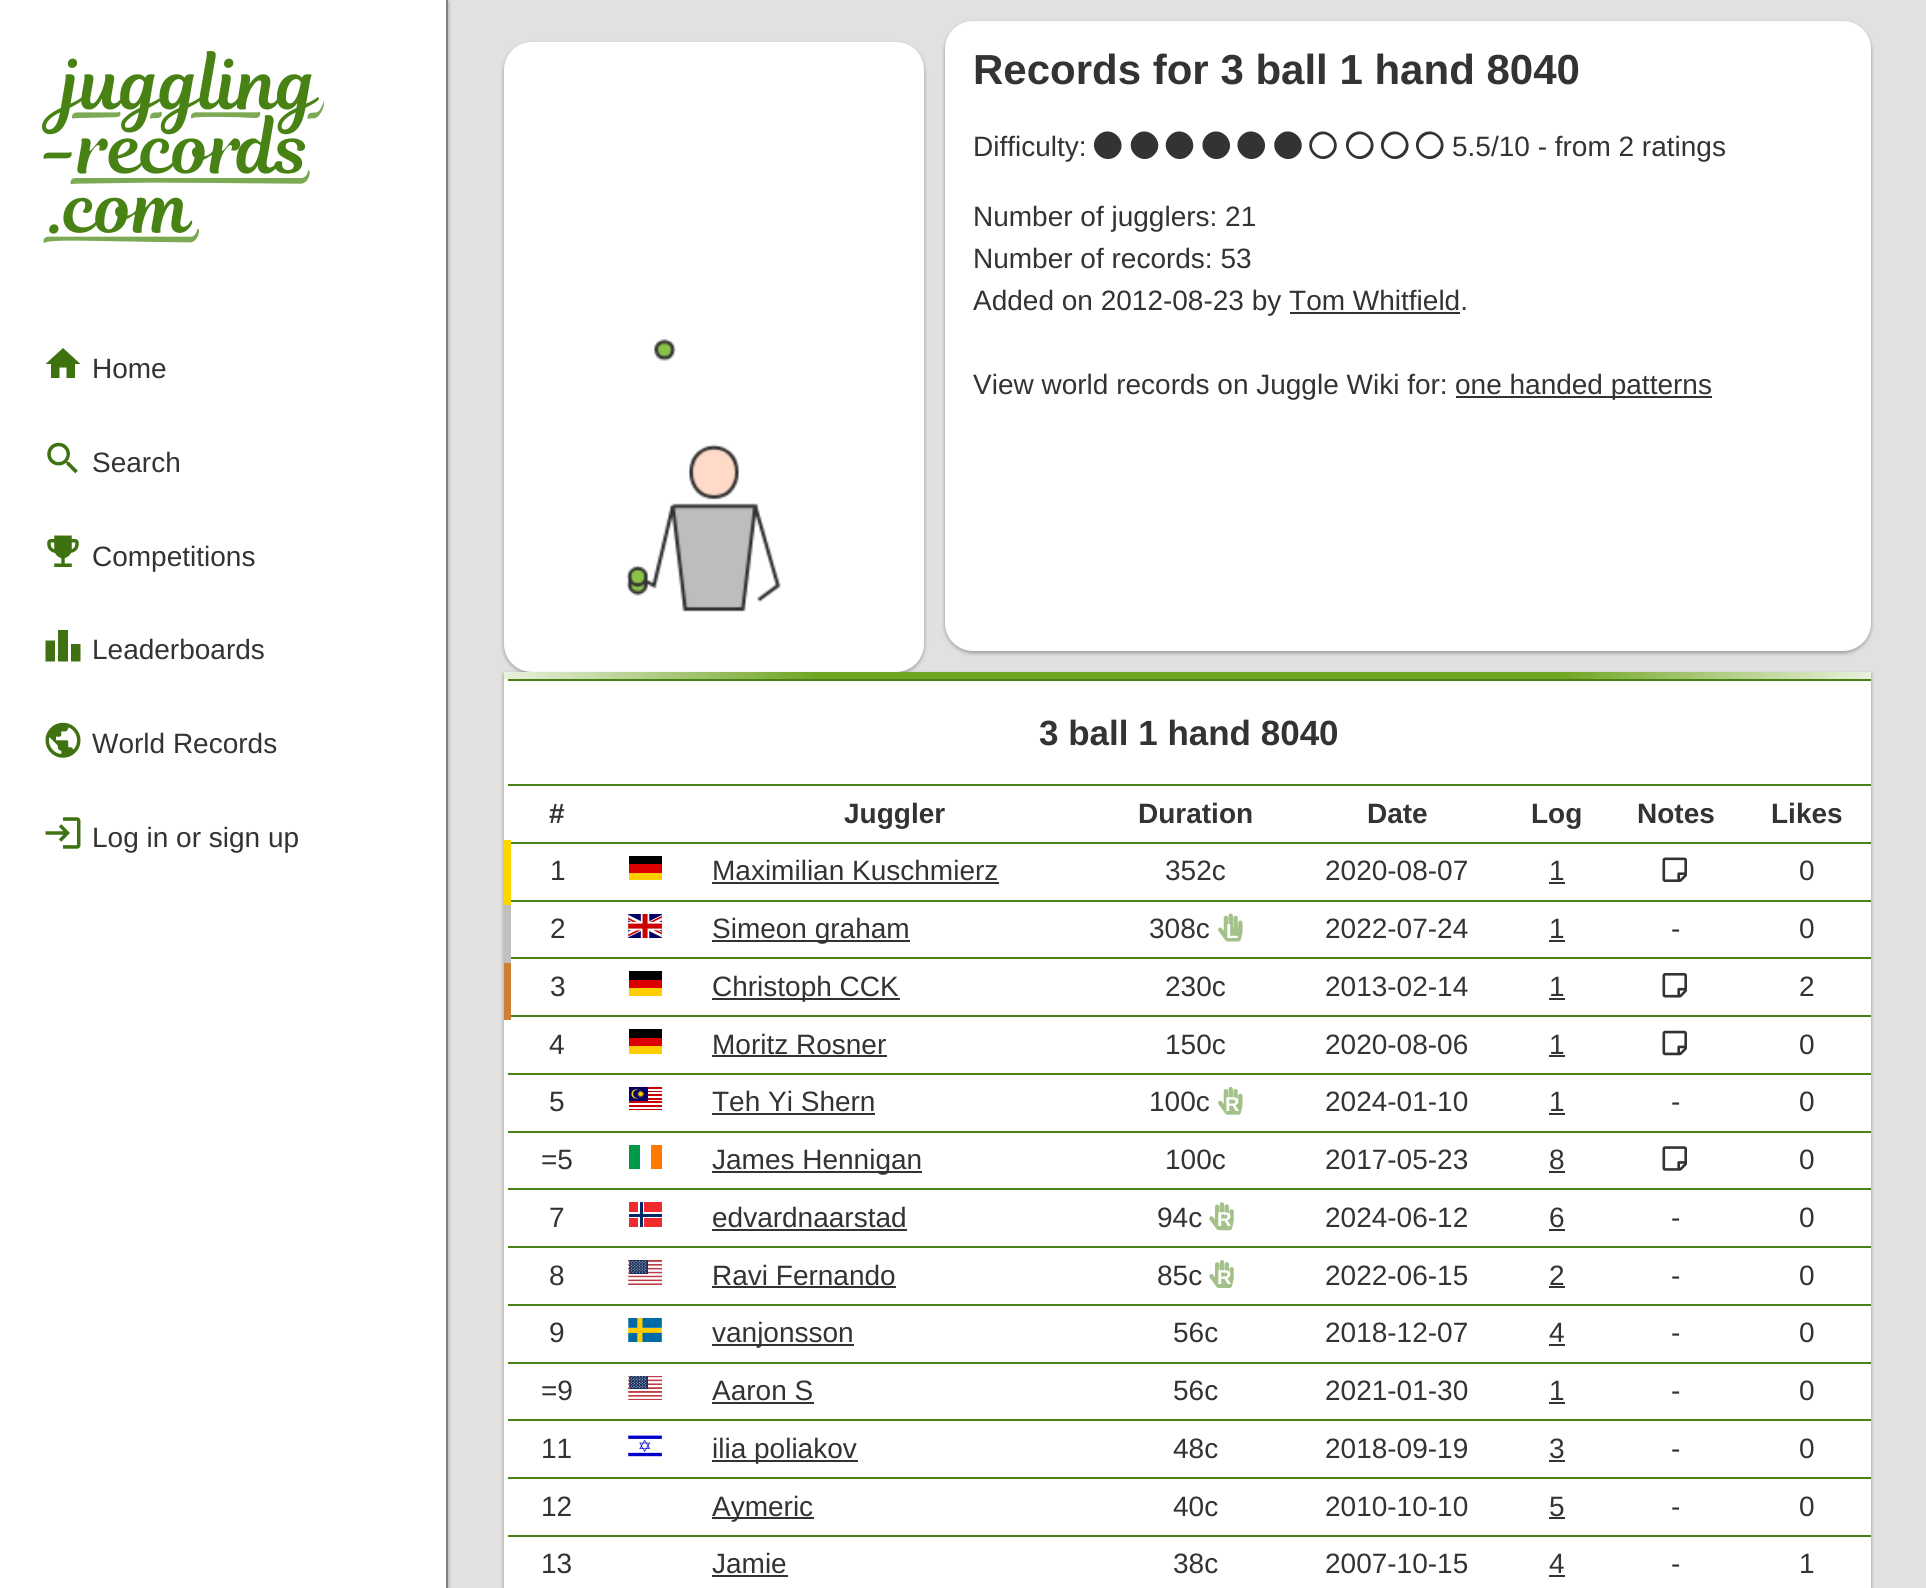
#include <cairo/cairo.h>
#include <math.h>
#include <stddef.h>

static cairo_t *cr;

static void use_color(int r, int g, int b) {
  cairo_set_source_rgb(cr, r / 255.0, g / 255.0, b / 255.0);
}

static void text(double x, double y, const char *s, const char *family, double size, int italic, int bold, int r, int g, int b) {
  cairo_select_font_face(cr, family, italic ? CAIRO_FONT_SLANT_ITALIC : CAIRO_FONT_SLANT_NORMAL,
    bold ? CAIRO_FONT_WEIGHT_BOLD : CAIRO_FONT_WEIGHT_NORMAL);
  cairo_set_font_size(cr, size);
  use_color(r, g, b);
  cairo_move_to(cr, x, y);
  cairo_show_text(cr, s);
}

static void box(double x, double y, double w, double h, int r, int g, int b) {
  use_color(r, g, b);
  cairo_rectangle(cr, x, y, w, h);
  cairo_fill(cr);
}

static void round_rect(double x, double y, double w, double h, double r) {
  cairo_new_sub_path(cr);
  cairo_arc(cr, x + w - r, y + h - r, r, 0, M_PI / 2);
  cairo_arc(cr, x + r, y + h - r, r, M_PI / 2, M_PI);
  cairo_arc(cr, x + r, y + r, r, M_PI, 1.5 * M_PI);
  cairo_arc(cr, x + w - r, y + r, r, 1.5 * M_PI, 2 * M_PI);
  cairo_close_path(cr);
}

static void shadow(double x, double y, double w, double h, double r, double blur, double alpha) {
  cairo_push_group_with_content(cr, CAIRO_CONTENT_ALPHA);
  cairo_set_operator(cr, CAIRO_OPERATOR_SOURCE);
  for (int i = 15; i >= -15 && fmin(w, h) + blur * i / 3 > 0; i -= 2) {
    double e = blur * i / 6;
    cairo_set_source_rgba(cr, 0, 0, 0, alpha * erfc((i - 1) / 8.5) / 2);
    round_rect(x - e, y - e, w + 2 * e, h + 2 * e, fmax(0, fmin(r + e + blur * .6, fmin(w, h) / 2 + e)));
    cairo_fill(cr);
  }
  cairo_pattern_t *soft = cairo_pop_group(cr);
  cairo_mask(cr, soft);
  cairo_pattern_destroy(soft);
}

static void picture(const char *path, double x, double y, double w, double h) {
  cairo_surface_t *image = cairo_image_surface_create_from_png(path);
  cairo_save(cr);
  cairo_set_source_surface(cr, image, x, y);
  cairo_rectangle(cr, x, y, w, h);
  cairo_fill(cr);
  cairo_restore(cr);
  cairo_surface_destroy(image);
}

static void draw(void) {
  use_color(226, 225, 224);
  cairo_paint(cr);
  use_color(0, 0, 0);
  shadow(0, 2, 448, 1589, 0, 2, 0.24);
  shadow(0, 2, 448, 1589, 0, 2.5, 0.12);
  box(0, 0, 446, 1588, 255, 255, 255);
  box(446, 0, 2, 1588, 128, 128, 128);
  picture("img_01.png", 42, 51, 282, 192);
  use_color(62, 113, 16);
  cairo_new_path(cr);
  cairo_move_to(cr, 59.5, 378);
  cairo_line_to(cr, 51, 378);
  cairo_line_to(cr, 51, 364);
  cairo_line_to(cr, 45.5, 364);
  cairo_line_to(cr, 63, 348);
  cairo_line_to(cr, 80.5, 364);
  cairo_line_to(cr, 75, 364);
  cairo_line_to(cr, 75, 378);
  cairo_line_to(cr, 66.5, 378);
  cairo_line_to(cr, 66.5, 367.5);
  cairo_line_to(cr, 59.5, 367.5);
  cairo_close_path(cr);
  cairo_fill(cr);
  picture("img_02.png", 47, 442, 31, 32);
  picture("img_03.png", 47, 535, 32, 32);
  cairo_new_path(cr);
  cairo_move_to(cr, 55, 661.5);
  cairo_line_to(cr, 45.5, 661.5);
  cairo_line_to(cr, 45.5, 640.5);
  cairo_line_to(cr, 55, 640.5);
  cairo_close_path(cr);
  cairo_move_to(cr, 68, 630);
  cairo_line_to(cr, 58, 630);
  cairo_line_to(cr, 58, 661.5);
  cairo_line_to(cr, 68, 661.5);
  cairo_close_path(cr);
  cairo_move_to(cr, 80.5, 644);
  cairo_line_to(cr, 71, 644);
  cairo_line_to(cr, 71, 661.5);
  cairo_line_to(cr, 80.5, 661.5);
  cairo_close_path(cr);
  cairo_fill(cr);
  picture("img_04.png", 45, 722, 36, 36);
  picture("img_05.png", 45, 817, 36, 32);
  use_color(0, 0, 0);
  shadow(504, 44, 420, 630, 28, 2, 0.24);
  shadow(504, 44, 420, 630, 28, 2.5, 0.12);
  use_color(255, 255, 255);
  round_rect(504, 42, 420, 630, 28);
  cairo_fill(cr);
  picture("img_06.png", 626, 339, 155, 273);
  use_color(0, 0, 0);
  shadow(945, 23, 926, 630, 28, 2, 0.24);
  shadow(945, 23, 926, 630, 28, 2.5, 0.12);
  use_color(255, 255, 255);
  round_rect(945, 21, 926, 630, 28);
  cairo_fill(cr);
  use_color(51, 51, 51);
  cairo_new_path(cr);
  cairo_move_to(cr, 1098, 135.5);
  cairo_curve_to(cr, 1111, 123, 1130, 142, 1117.5, 155);
  cairo_curve_to(cr, 1104.5, 167.5, 1085.5, 148.5, 1098, 135.5);
  cairo_close_path(cr);
  cairo_fill(cr);
  cairo_new_path(cr);
  cairo_move_to(cr, 1135, 135.5);
  cairo_curve_to(cr, 1147.5, 123, 1167, 142, 1154, 155);
  cairo_curve_to(cr, 1141.5, 167.5, 1122, 148.5, 1135, 135.5);
  cairo_close_path(cr);
  cairo_fill(cr);
  cairo_new_path(cr);
  cairo_move_to(cr, 1170, 135.5);
  cairo_curve_to(cr, 1182.5, 123, 1202, 142, 1189, 155);
  cairo_curve_to(cr, 1176.5, 167.5, 1157, 148.5, 1170, 135.5);
  cairo_close_path(cr);
  cairo_fill(cr);
  cairo_new_path(cr);
  cairo_move_to(cr, 1206.5, 135.5);
  cairo_curve_to(cr, 1219.5, 123, 1238.5, 142, 1226, 155);
  cairo_curve_to(cr, 1213, 167.5, 1194, 148.5, 1206.5, 135.5);
  cairo_close_path(cr);
  cairo_fill(cr);
  cairo_new_path(cr);
  cairo_move_to(cr, 1241.5, 135.5);
  cairo_curve_to(cr, 1254.5, 123, 1273.5, 142, 1261, 155);
  cairo_curve_to(cr, 1248, 167.5, 1229, 148.5, 1241.5, 135.5);
  cairo_close_path(cr);
  cairo_fill(cr);
  cairo_new_path(cr);
  cairo_move_to(cr, 1278.5, 135.5);
  cairo_curve_to(cr, 1291, 123, 1310.5, 142, 1297.5, 155);
  cairo_curve_to(cr, 1285, 167.5, 1265.5, 148.5, 1278.5, 135.5);
  cairo_close_path(cr);
  cairo_move_to(cr, 1313.5, 135.5);
  cairo_curve_to(cr, 1326, 123, 1345.5, 142, 1332.5, 155);
  cairo_curve_to(cr, 1320, 167.5, 1300.5, 148.5, 1313.5, 135.5);
  cairo_close_path(cr);
  cairo_move_to(cr, 1315.5, 153);
  cairo_curve_to(cr, 1325.5, 163, 1341, 147.5, 1330.5, 137.5);
  cairo_curve_to(cr, 1320.5, 127.5, 1305, 143, 1315.5, 153);
  cairo_close_path(cr);
  cairo_fill(cr);
  cairo_new_path(cr);
  cairo_move_to(cr, 1350, 135.5);
  cairo_curve_to(cr, 1363, 123, 1382, 142, 1369.5, 155);
  cairo_curve_to(cr, 1356.5, 167.5, 1337.5, 148.5, 1350, 135.5);
  cairo_close_path(cr);
  cairo_move_to(cr, 1352, 153);
  cairo_curve_to(cr, 1362, 163, 1377.5, 147.5, 1367.5, 137.5);
  cairo_curve_to(cr, 1357.5, 127.5, 1342, 143, 1352, 153);
  cairo_close_path(cr);
  cairo_fill(cr);
  cairo_new_path(cr);
  cairo_move_to(cr, 1385, 135.5);
  cairo_curve_to(cr, 1398, 123, 1417, 142, 1404.5, 155);
  cairo_curve_to(cr, 1391.5, 167.5, 1372.5, 148.5, 1385, 135.5);
  cairo_close_path(cr);
  cairo_move_to(cr, 1387, 153);
  cairo_curve_to(cr, 1397, 163, 1412.5, 147.5, 1402.5, 137.5);
  cairo_curve_to(cr, 1392.5, 127.5, 1377, 143, 1387, 153);
  cairo_close_path(cr);
  cairo_fill(cr);
  cairo_new_path(cr);
  cairo_move_to(cr, 1420, 135.5);
  cairo_curve_to(cr, 1433, 123, 1452, 142, 1439.5, 155);
  cairo_curve_to(cr, 1426.5, 167.5, 1407.5, 148.5, 1420, 135.5);
  cairo_close_path(cr);
  cairo_move_to(cr, 1422, 153);
  cairo_curve_to(cr, 1432, 163, 1447.5, 147.5, 1437.5, 137.5);
  cairo_curve_to(cr, 1427.5, 127.5, 1412, 143, 1422, 153);
  cairo_close_path(cr);
  cairo_fill(cr);
  box(1290, 312, 170, 2, 51, 51, 51);
  box(1456, 396, 256, 2, 51, 51, 51);
  use_color(0, 0, 0);
  shadow(504, 674, 1367, 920, 0, 2, 0.24);
  shadow(504, 674, 1367, 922, 0, 2.5, 0.12);
  box(504, 672, 1367, 916, 255, 255, 255);
  picture("img_07.png", 504, 672, 1367, 7);
  box(508, 679, 1363, 2, 72, 130, 20);
  box(508, 784, 1363, 2, 72, 130, 20);
  box(508, 842, 1363, 2, 72, 130, 20);
  box(508, 900, 1363, 2, 72, 130, 20);
  box(508, 957, 1363, 2, 72, 130, 20);
  box(508, 1015, 1363, 2, 72, 130, 20);
  box(504, 956, 7, 64, 205, 127, 50);
  box(504, 898, 7, 65, 192, 192, 192);
  box(504, 840, 7, 65, 255, 215, 0);
  box(629, 873, 33, 7, 255, 206, 0);
  box(629, 856, 33, 8, 0, 0, 0);
  box(629, 864, 33, 9, 221, 0, 0);
  box(712, 882, 287, 2, 51, 51, 51);
  box(1549, 882, 16, 2, 51, 51, 51);
  picture("img_08.png", 1662, 857, 25, 25);
  picture("img_09.png", 628, 914, 34, 24);
  box(712, 940, 198, 2, 51, 51, 51);
  picture("img_10.png", 1218, 913, 25, 29);
  box(1549, 940, 16, 2, 51, 51, 51);
  box(629, 988, 33, 8, 255, 206, 0);
  box(629, 971, 33, 9, 0, 0, 0);
  box(629, 980, 33, 8, 221, 0, 0);
  box(712, 998, 188, 2, 51, 51, 51);
  box(1549, 998, 16, 2, 51, 51, 51);
  picture("img_11.png", 1662, 973, 25, 25);
  box(629, 1046, 33, 8, 255, 206, 0);
  box(629, 1029, 33, 9, 0, 0, 0);
  box(629, 1038, 33, 8, 221, 0, 0);
  box(712, 1055, 175, 2, 51, 51, 51);
  box(1549, 1055, 16, 2, 51, 51, 51);
  picture("img_12.png", 1662, 1030, 25, 26);
  box(508, 1073, 1363, 2, 72, 130, 20);
  picture("img_13.png", 629, 1087, 33, 23);
  box(712, 1113, 163, 2, 51, 51, 51);
  picture("img_14.png", 1218, 1086, 25, 29);
  box(1549, 1113, 16, 2, 51, 51, 51);
  box(508, 1131, 1363, 2, 72, 130, 20);
  box(629, 1145, 11, 24, 0, 154, 73);
  box(651, 1145, 11, 24, 255, 121, 0);
  box(712, 1171, 210, 2, 51, 51, 51);
  box(1549, 1171, 16, 2, 51, 51, 51);
  picture("img_15.png", 1662, 1146, 25, 25);
  box(508, 1188, 1363, 2, 72, 130, 20);
  box(629, 1202, 33, 25, 239, 43, 45);
  box(638, 1202, 6, 25, 255, 255, 255);
  box(629, 1212, 33, 6, 255, 255, 255);
  box(640, 1202, 3, 25, 0, 40, 104);
  box(629, 1214, 33, 3, 0, 40, 104);
  box(712, 1229, 195, 2, 51, 51, 51);
  picture("img_16.png", 1209, 1202, 25, 29);
  box(1549, 1229, 16, 2, 51, 51, 51);
  box(508, 1246, 1363, 2, 72, 130, 20);
  picture("img_17.png", 628, 1260, 34, 25);
  box(712, 1286, 184, 2, 51, 51, 51);
  picture("img_18.png", 1209, 1260, 25, 28);
  box(1549, 1286, 16, 2, 51, 51, 51);
  box(508, 1304, 1363, 2, 72, 130, 20);
  picture("img_19.png", 628, 1318, 34, 24);
  box(712, 1344, 142, 2, 51, 51, 51);
  box(1549, 1344, 16, 2, 51, 51, 51);
  box(508, 1362, 1363, 2, 72, 130, 20);
  picture("img_20.png", 628, 1376, 34, 24);
  box(712, 1402, 102, 2, 51, 51, 51);
  box(1549, 1402, 16, 2, 51, 51, 51);
  box(508, 1419, 1363, 2, 72, 130, 20);
  picture("img_21.png", 628, 1435, 34, 22);
  box(712, 1460, 146, 2, 51, 51, 51);
  box(1549, 1460, 16, 2, 51, 51, 51);
  box(508, 1477, 1363, 2, 72, 130, 20);
  box(712, 1517, 102, 2, 51, 51, 51);
  box(1549, 1517, 16, 2, 51, 51, 51);
  box(508, 1535, 1363, 2, 72, 130, 20);
  box(712, 1575, 76, 2, 51, 51, 51);
  box(1549, 1575, 16, 2, 51, 51, 51);
  text(92, 378, "Home", "Liberation Sans", 28, 0, 0, 51, 51, 51);
  text(92, 472, "Search", "Liberation Sans", 28, 0, 0, 51, 51, 51);
  text(92, 566, "Competitions", "Liberation Sans", 28, 0, 0, 51, 51, 51);
  text(92, 659, "Leaderboards", "Liberation Sans", 28, 0, 0, 51, 51, 51);
  text(92, 753, "World Records", "Liberation Sans", 28, 0, 0, 51, 51, 51);
  text(92, 847, "Log in or sign up", "Liberation Sans", 28, 0, 0, 51, 51, 51);
  text(973, 84, "Records for 3 ball 1 hand 8040", "Liberation Sans", 42, 0, 1, 51, 51, 51);
  text(973, 156, "Difficulty:", "Liberation Sans", 28, 0, 0, 51, 51, 51);
  text(1452, 156, "5.5/10 - from 2 ratings", "Liberation Sans", 28, 0, 0, 51, 51, 51);
  text(973, 226, "Number of jugglers: 21", "Liberation Sans", 28, 0, 0, 51, 51, 51);
  text(973, 268, "Number of records: 53", "Liberation Sans", 28, 0, 0, 51, 51, 51);
  text(973, 310, "Added on 2012-08-23 by Tom Whitfield.", "Liberation Sans", 28, 0, 0, 51, 51, 51);
  text(973, 394, "View world records on Juggle Wiki for:", "Liberation Sans", 28, 0, 0, 51, 51, 51);
  text(1455, 394, "one handed patterns", "Liberation Sans", 28, 0, 0, 51, 51, 51);
  text(1039, 745, "3 ball 1 hand 8040", "Liberation Sans", 35, 0, 1, 51, 51, 51);
  text(549, 823, "#", "Liberation Sans", 28, 0, 1, 51, 51, 51);
  text(844, 823, "Juggler", "Liberation Sans", 28, 0, 1, 51, 51, 51);
  text(1138, 823, "Duration", "Liberation Sans", 28, 0, 1, 51, 51, 51);
  text(1367, 823, "Date", "Liberation Sans", 28, 0, 1, 51, 51, 51);
  text(1531, 823, "Log", "Liberation Sans", 28, 0, 1, 51, 51, 51);
  text(1637, 823, "Notes", "Liberation Sans", 28, 0, 1, 51, 51, 51);
  text(1771, 823, "Likes", "Liberation Sans", 28, 0, 1, 51, 51, 51);
  text(550, 880, "1", "Liberation Sans", 28, 0, 0, 51, 51, 51);
  text(712, 880, "Maximilian Kuschmierz", "Liberation Sans", 28, 0, 0, 51, 51, 51);
  text(1165, 880, "352c", "Liberation Sans", 28, 0, 0, 51, 51, 51);
  text(1325, 880, "2020-08-07", "Liberation Sans", 28, 0, 0, 51, 51, 51);
  text(1549, 880, "1", "Liberation Sans", 28, 0, 0, 51, 51, 51);
  text(1799, 880, "0", "Liberation Sans", 28, 0, 0, 51, 51, 51);
  text(550, 938, "2", "Liberation Sans", 28, 0, 0, 51, 51, 51);
  text(712, 938, "Simeon graham", "Liberation Sans", 28, 0, 0, 51, 51, 51);
  text(1149, 938, "308c", "Liberation Sans", 28, 0, 0, 51, 51, 51);
  text(1226, 938, "L", "Liberation Sans", 20, 0, 1, 255, 255, 255);
  text(1325, 938, "2022-07-24", "Liberation Sans", 28, 0, 0, 51, 51, 51);
  text(1549, 938, "1", "Liberation Sans", 28, 0, 0, 51, 51, 51);
  text(1671, 938, "-", "Liberation Sans", 28, 0, 0, 51, 51, 51);
  text(1799, 938, "0", "Liberation Sans", 28, 0, 0, 51, 51, 51);
  text(550, 996, "3", "Liberation Sans", 28, 0, 0, 51, 51, 51);
  text(712, 996, "Christoph CCK", "Liberation Sans", 28, 0, 0, 51, 51, 51);
  text(1165, 996, "230c", "Liberation Sans", 28, 0, 0, 51, 51, 51);
  text(1325, 996, "2013-02-14", "Liberation Sans", 28, 0, 0, 51, 51, 51);
  text(1549, 996, "1", "Liberation Sans", 28, 0, 0, 51, 51, 51);
  text(1799, 996, "2", "Liberation Sans", 28, 0, 0, 51, 51, 51);
  text(549, 1054, "4", "Liberation Sans", 28, 0, 0, 51, 51, 51);
  text(712, 1054, "Moritz Rosner", "Liberation Sans", 28, 0, 0, 51, 51, 51);
  text(1165, 1054, "150c", "Liberation Sans", 28, 0, 0, 51, 51, 51);
  text(1325, 1054, "2020-08-06", "Liberation Sans", 28, 0, 0, 51, 51, 51);
  text(1549, 1054, "1", "Liberation Sans", 28, 0, 0, 51, 51, 51);
  text(1799, 1054, "0", "Liberation Sans", 28, 0, 0, 51, 51, 51);
  text(549, 1111, "5", "Liberation Sans", 28, 0, 0, 51, 51, 51);
  text(712, 1111, "Teh Yi Shern", "Liberation Sans", 28, 0, 0, 51, 51, 51);
  text(1149, 1111, "100c", "Liberation Sans", 28, 0, 0, 51, 51, 51);
  text(1225, 1111, "R", "Liberation Sans", 20, 0, 1, 255, 255, 255);
  text(1325, 1111, "2024-01-10", "Liberation Sans", 28, 0, 0, 51, 51, 51);
  text(1549, 1111, "1", "Liberation Sans", 28, 0, 0, 51, 51, 51);
  text(1671, 1111, "-", "Liberation Sans", 28, 0, 0, 51, 51, 51);
  text(1799, 1111, "0", "Liberation Sans", 28, 0, 0, 51, 51, 51);
  text(541, 1169, "=5", "Liberation Sans", 28, 0, 0, 51, 51, 51);
  text(712, 1169, "James Hennigan", "Liberation Sans", 28, 0, 0, 51, 51, 51);
  text(1165, 1169, "100c", "Liberation Sans", 28, 0, 0, 51, 51, 51);
  text(1325, 1169, "2017-05-23", "Liberation Sans", 28, 0, 0, 51, 51, 51);
  text(1549, 1169, "8", "Liberation Sans", 28, 0, 0, 51, 51, 51);
  text(1799, 1169, "0", "Liberation Sans", 28, 0, 0, 51, 51, 51);
  text(549, 1227, "7", "Liberation Sans", 28, 0, 0, 51, 51, 51);
  text(712, 1227, "edvardnaarstad", "Liberation Sans", 28, 0, 0, 51, 51, 51);
  text(1157, 1227, "94c", "Liberation Sans", 28, 0, 0, 51, 51, 51);
  text(1217, 1226, "R", "Liberation Sans", 20, 0, 1, 255, 255, 255);
  text(1325, 1227, "2024-06-12", "Liberation Sans", 28, 0, 0, 51, 51, 51);
  text(1549, 1227, "6", "Liberation Sans", 28, 0, 0, 51, 51, 51);
  text(1671, 1227, "-", "Liberation Sans", 28, 0, 0, 51, 51, 51);
  text(1799, 1227, "0", "Liberation Sans", 28, 0, 0, 51, 51, 51);
  text(549, 1285, "8", "Liberation Sans", 28, 0, 0, 51, 51, 51);
  text(712, 1285, "Ravi Fernando", "Liberation Sans", 28, 0, 0, 51, 51, 51);
  text(1157, 1285, "85c", "Liberation Sans", 28, 0, 0, 51, 51, 51);
  text(1217, 1284, "R", "Liberation Sans", 20, 0, 1, 255, 255, 255);
  text(1325, 1285, "2022-06-15", "Liberation Sans", 28, 0, 0, 51, 51, 51);
  text(1549, 1285, "2", "Liberation Sans", 28, 0, 0, 51, 51, 51);
  text(1671, 1285, "-", "Liberation Sans", 28, 0, 0, 51, 51, 51);
  text(1799, 1285, "0", "Liberation Sans", 28, 0, 0, 51, 51, 51);
  text(549, 1342, "9", "Liberation Sans", 28, 0, 0, 51, 51, 51);
  text(712, 1342, "vanjonsson", "Liberation Sans", 28, 0, 0, 51, 51, 51);
  text(1173, 1342, "56c", "Liberation Sans", 28, 0, 0, 51, 51, 51);
  text(1325, 1342, "2018-12-07", "Liberation Sans", 28, 0, 0, 51, 51, 51);
  text(1549, 1342, "4", "Liberation Sans", 28, 0, 0, 51, 51, 51);
  text(1671, 1342, "-", "Liberation Sans", 28, 0, 0, 51, 51, 51);
  text(1799, 1342, "0", "Liberation Sans", 28, 0, 0, 51, 51, 51);
  text(541, 1400, "=9", "Liberation Sans", 28, 0, 0, 51, 51, 51);
  text(712, 1400, "Aaron S", "Liberation Sans", 28, 0, 0, 51, 51, 51);
  text(1173, 1400, "56c", "Liberation Sans", 28, 0, 0, 51, 51, 51);
  text(1325, 1400, "2021-01-30", "Liberation Sans", 28, 0, 0, 51, 51, 51);
  text(1549, 1400, "1", "Liberation Sans", 28, 0, 0, 51, 51, 51);
  text(1671, 1400, "-", "Liberation Sans", 28, 0, 0, 51, 51, 51);
  text(1799, 1400, "0", "Liberation Sans", 28, 0, 0, 51, 51, 51);
  text(541, 1458, "11", "Liberation Sans", 28, 0, 0, 51, 51, 51);
  text(712, 1458, "ilia poliakov", "Liberation Sans", 28, 0, 0, 51, 51, 51);
  text(1173, 1458, "48c", "Liberation Sans", 28, 0, 0, 51, 51, 51);
  text(1325, 1458, "2018-09-19", "Liberation Sans", 28, 0, 0, 51, 51, 51);
  text(1549, 1458, "3", "Liberation Sans", 28, 0, 0, 51, 51, 51);
  text(1671, 1458, "-", "Liberation Sans", 28, 0, 0, 51, 51, 51);
  text(1799, 1458, "0", "Liberation Sans", 28, 0, 0, 51, 51, 51);
  text(541, 1516, "12", "Liberation Sans", 28, 0, 0, 51, 51, 51);
  text(712, 1516, "Aymeric", "Liberation Sans", 28, 0, 0, 51, 51, 51);
  text(1173, 1516, "40c", "Liberation Sans", 28, 0, 0, 51, 51, 51);
  text(1325, 1516, "2010-10-10", "Liberation Sans", 28, 0, 0, 51, 51, 51);
  text(1549, 1516, "5", "Liberation Sans", 28, 0, 0, 51, 51, 51);
  text(1671, 1516, "-", "Liberation Sans", 28, 0, 0, 51, 51, 51);
  text(1799, 1516, "0", "Liberation Sans", 28, 0, 0, 51, 51, 51);
  text(541, 1573, "13", "Liberation Sans", 28, 0, 0, 51, 51, 51);
  text(712, 1573, "Jamie", "Liberation Sans", 28, 0, 0, 51, 51, 51);
  text(1173, 1573, "38c", "Liberation Sans", 28, 0, 0, 51, 51, 51);
  text(1325, 1573, "2007-10-15", "Liberation Sans", 28, 0, 0, 51, 51, 51);
  text(1549, 1573, "4", "Liberation Sans", 28, 0, 0, 51, 51, 51);
  text(1671, 1573, "-", "Liberation Sans", 28, 0, 0, 51, 51, 51);
  text(1799, 1573, "1", "Liberation Sans", 28, 0, 0, 51, 51, 51);
}

int main(void) {
  cairo_surface_t *surface = cairo_image_surface_create(CAIRO_FORMAT_RGB24, 1926, 1588);
  cr = cairo_create(surface);
  cairo_font_options_t *options = cairo_font_options_create();
  cairo_font_options_set_hint_metrics(options, CAIRO_HINT_METRICS_OFF);
  cairo_font_options_set_hint_style(options, CAIRO_HINT_STYLE_NONE);
  cairo_set_font_options(cr, options);
  cairo_set_miter_limit(cr, 4);
  draw();
  cairo_surface_write_to_png(surface, "out.png");
  cairo_font_options_destroy(options);
  cairo_destroy(cr);
  cairo_surface_destroy(surface);
  return 0;
}
